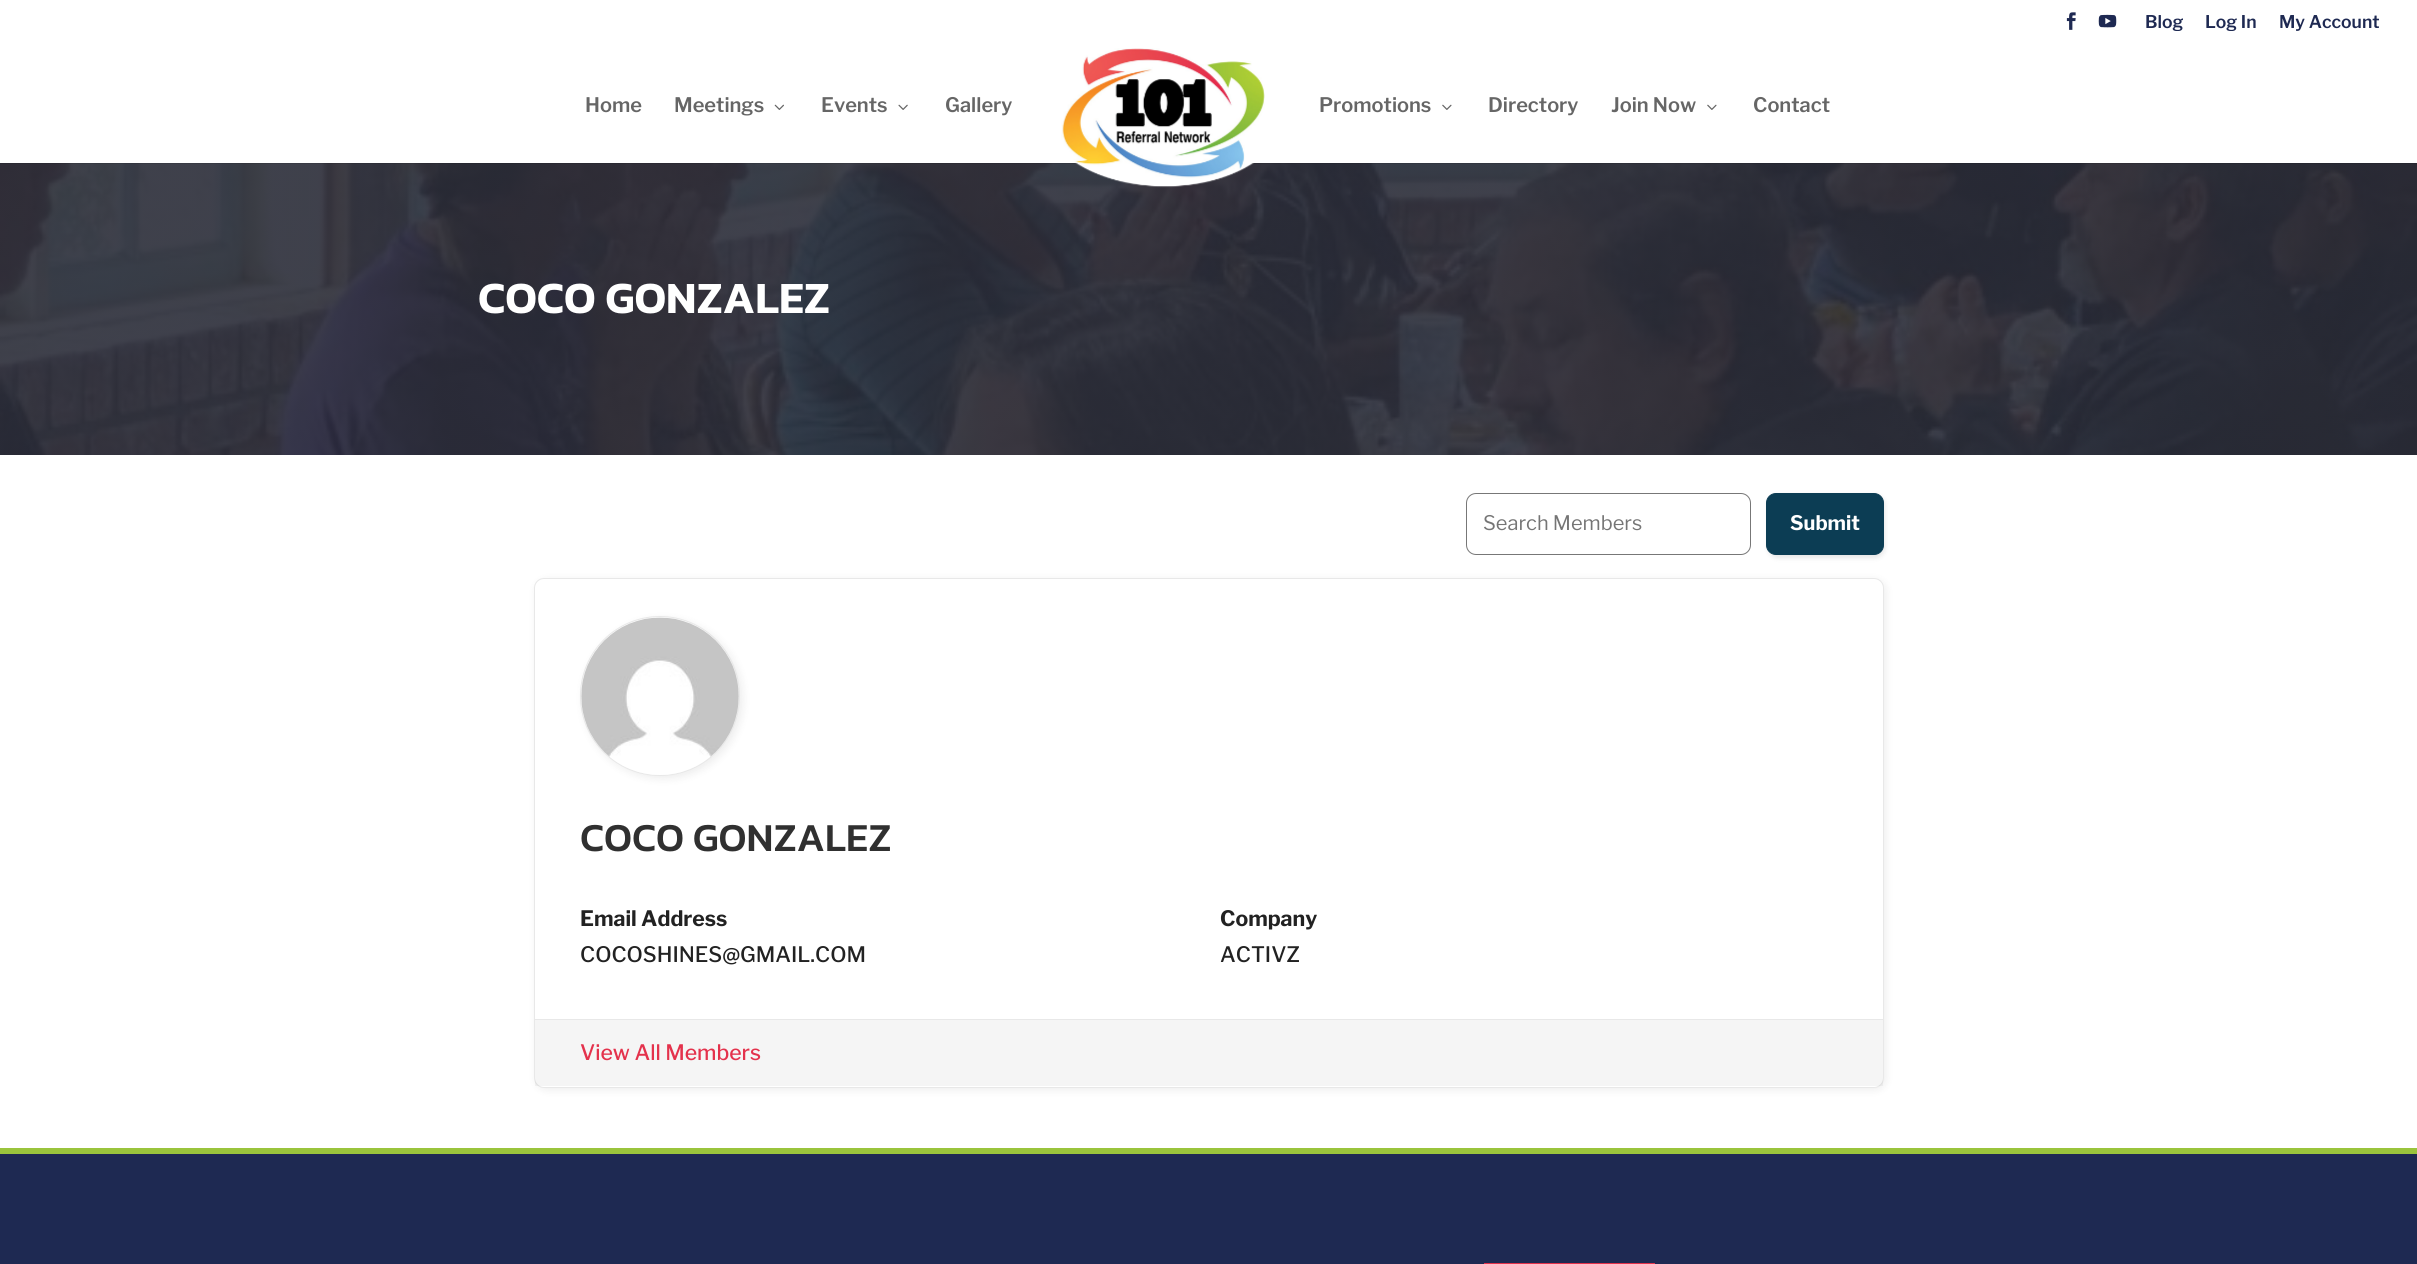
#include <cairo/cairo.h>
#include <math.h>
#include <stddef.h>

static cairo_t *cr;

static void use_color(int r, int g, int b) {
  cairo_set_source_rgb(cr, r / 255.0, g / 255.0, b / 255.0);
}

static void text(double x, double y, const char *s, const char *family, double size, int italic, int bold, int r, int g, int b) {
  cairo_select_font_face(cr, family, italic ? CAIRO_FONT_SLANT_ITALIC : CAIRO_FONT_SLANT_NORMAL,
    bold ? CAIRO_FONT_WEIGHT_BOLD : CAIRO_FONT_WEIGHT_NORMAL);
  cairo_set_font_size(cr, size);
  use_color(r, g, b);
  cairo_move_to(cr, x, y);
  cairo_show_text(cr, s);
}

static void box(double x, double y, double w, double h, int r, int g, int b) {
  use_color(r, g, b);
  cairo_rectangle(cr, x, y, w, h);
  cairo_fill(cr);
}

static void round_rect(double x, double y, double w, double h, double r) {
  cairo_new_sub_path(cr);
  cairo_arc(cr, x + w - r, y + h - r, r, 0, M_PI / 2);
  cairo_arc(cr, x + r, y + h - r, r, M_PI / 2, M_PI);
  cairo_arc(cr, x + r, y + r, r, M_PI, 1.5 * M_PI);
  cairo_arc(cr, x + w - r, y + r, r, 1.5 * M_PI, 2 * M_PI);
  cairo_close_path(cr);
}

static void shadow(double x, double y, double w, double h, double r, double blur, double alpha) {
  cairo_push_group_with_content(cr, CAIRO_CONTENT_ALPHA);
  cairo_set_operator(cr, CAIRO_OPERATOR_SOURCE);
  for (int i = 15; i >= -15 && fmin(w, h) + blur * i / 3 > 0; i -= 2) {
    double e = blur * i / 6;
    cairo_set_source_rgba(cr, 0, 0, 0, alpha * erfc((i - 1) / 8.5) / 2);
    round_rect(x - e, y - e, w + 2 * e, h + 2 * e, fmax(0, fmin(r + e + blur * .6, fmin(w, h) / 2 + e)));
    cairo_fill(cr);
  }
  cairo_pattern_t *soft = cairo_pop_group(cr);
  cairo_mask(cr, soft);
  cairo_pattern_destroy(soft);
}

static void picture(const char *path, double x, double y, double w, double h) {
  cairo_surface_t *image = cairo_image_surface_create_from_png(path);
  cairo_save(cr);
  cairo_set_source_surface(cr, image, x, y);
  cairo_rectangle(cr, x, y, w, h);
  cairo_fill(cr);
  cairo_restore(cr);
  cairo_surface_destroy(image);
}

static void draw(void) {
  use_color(255, 255, 255);
  cairo_paint(cr);
  picture("img_01.png", 2066, 12, 10, 18);
  picture("img_02.png", 2098, 14, 19, 14);
  picture("img_07.png", 0, 163, 2417, 292);
  cairo_set_source_rgba(cr, 0, 0, 0, 0.1);
  cairo_new_path(cr);
  cairo_move_to(cr, 0, 162);
  cairo_line_to(cr, 0, 164);
  cairo_line_to(cr, 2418, 164);
  cairo_line_to(cr, 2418, 33);
  cairo_line_to(cr, 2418, 162);
  cairo_close_path(cr);
  cairo_fill(cr);
  round_rect(1466.5, 493.5, 284, 61, 9.5);
  use_color(119, 119, 119);
  cairo_set_line_width(cr, 1);
  cairo_stroke(cr);
  use_color(0, 0, 0);
  shadow(1768, 495, 117, 63, 10, 2.5, 0.1);
  use_color(12, 61, 84);
  round_rect(1766.5, 493.5, 117, 61, 9.5);
  cairo_fill_preserve(cr);
  cairo_stroke(cr);
  use_color(0, 0, 0);
  shadow(536, 580, 1350, 510, 10, 4.5, 0.07);
  use_color(255, 255, 255);
  round_rect(534.5, 578.5, 1349, 509, 9.5);
  cairo_fill_preserve(cr);
  use_color(232, 232, 232);
  cairo_stroke(cr);
  use_color(0, 0, 0);
  shadow(583, 619, 160, 160, 80, 4.5, 0.07);
  cairo_arc(cr, 660, 696, 79.5, 0, 2 * M_PI);
  use_color(232, 232, 232);
  cairo_stroke(cr);
  picture("img_08.png", 581, 617, 158, 158);
  cairo_set_source_rgba(cr, 0, 0, 0, 0.04);
  cairo_rectangle(cr, 535, 1020, 1348, 66);
  cairo_fill(cr);
  box(535, 1019, 1348, 1, 232, 232, 232);
  box(0, 1154, 2417, 110, 30, 41, 82);
  box(0, 1148, 2417, 6, 154, 196, 60);
  box(1484, 1263, 171, 1, 228, 50, 76);
  text(2145, 28, "Blog", "Libre Franklin SemiBold", 17.5, 0, 0, 30, 41, 82);
  text(2205, 28, "Log In", "Libre Franklin SemiBold", 17.5, 0, 0, 30, 41, 82);
  text(2279, 28, "My Account", "Libre Franklin SemiBold", 17.5, 0, 0, 30, 41, 82);
  box(0, 31, 2417, 132, 255, 255, 255);
  text(585, 112, "Home", "Libre Franklin SemiBold", 20, 0, 0, 102, 102, 102);
  text(674, 112, "Meetings", "Libre Franklin SemiBold", 20, 0, 0, 102, 102, 102);
  picture("img_03.png", 774, 104, 10, 6);
  text(821, 112, "Events", "Libre Franklin SemiBold", 20, 0, 0, 102, 102, 102);
  picture("img_04.png", 898, 104, 10, 6);
  text(945, 112, "Gallery", "Libre Franklin SemiBold", 20, 0, 0, 102, 102, 102);
  picture("img_05.png", 1061, 48, 204, 140);
  text(1319, 112, "Promotions", "Libre Franklin SemiBold", 20, 0, 0, 102, 102, 102);
  picture("img_06.png", 1442, 104, 10, 6);
  text(1488, 112, "Directory", "Libre Franklin SemiBold", 20, 0, 0, 102, 102, 102);
  text(1611, 112, "Join Now", "Libre Franklin SemiBold", 20, 0, 0, 102, 102, 102);
  picture("img_06.png", 1707, 104, 10, 6);
  text(1753, 112, "Contact", "Libre Franklin SemiBold", 20, 0, 0, 102, 102, 102);
  text(478, 313, "COCO GONZALEZ", "Kanit SemiBold", 45, 0, 0, 255, 255, 255);
  text(1483, 530, "Search Members", "Libre Franklin", 20, 0, 0, 117, 117, 117);
  text(1790, 530, "Submit", "Libre Franklin", 20, 0, 1, 255, 255, 255);
  text(580, 851, "COCO GONZALEZ", "Kanit Medium", 40, 0, 0, 48, 48, 48);
  text(580, 926, "Email Address", "Libre Franklin", 21.25, 0, 1, 34, 34, 34);
  text(580, 962, "COCOSHINES@GMAIL.COM", "Libre Franklin Medium", 21.25, 0, 0, 34, 34, 34);
  text(1220, 926, "Company", "Libre Franklin", 21.25, 0, 1, 34, 34, 34);
  text(1220, 962, "ACTIVZ", "Libre Franklin Medium", 21.25, 0, 0, 34, 34, 34);
  text(580, 1060, "View All Members", "Libre Franklin Medium", 21.25, 0, 0, 228, 50, 76);
}

int main(void) {
  cairo_surface_t *surface = cairo_image_surface_create(CAIRO_FORMAT_RGB24, 2417, 1264);
  cr = cairo_create(surface);
  cairo_font_options_t *options = cairo_font_options_create();
  cairo_font_options_set_hint_metrics(options, CAIRO_HINT_METRICS_OFF);
  cairo_font_options_set_hint_style(options, CAIRO_HINT_STYLE_NONE);
  cairo_set_font_options(cr, options);
  cairo_set_miter_limit(cr, 4);
  draw();
  cairo_surface_write_to_png(surface, "out.png");
  cairo_font_options_destroy(options);
  cairo_destroy(cr);
  cairo_surface_destroy(surface);
  return 0;
}
